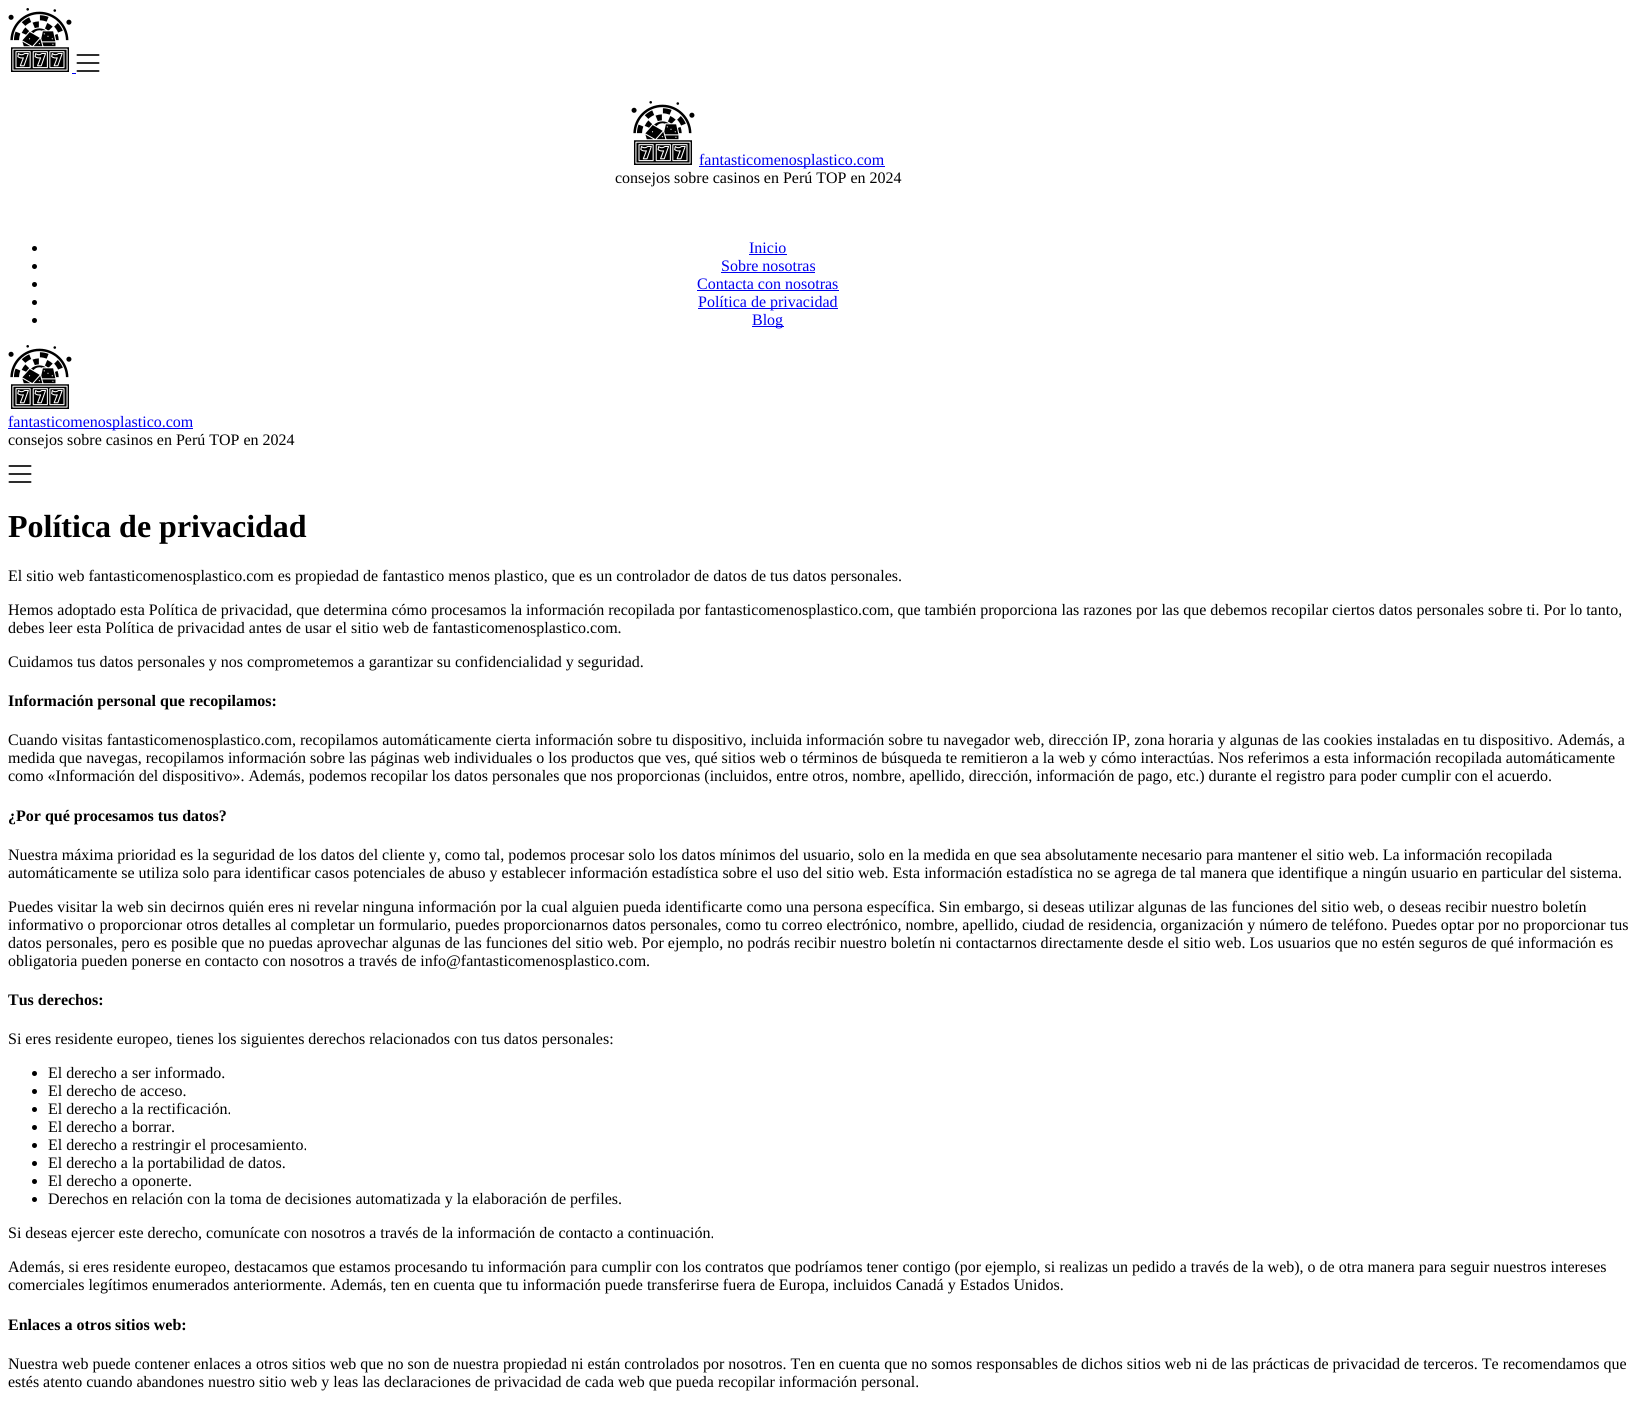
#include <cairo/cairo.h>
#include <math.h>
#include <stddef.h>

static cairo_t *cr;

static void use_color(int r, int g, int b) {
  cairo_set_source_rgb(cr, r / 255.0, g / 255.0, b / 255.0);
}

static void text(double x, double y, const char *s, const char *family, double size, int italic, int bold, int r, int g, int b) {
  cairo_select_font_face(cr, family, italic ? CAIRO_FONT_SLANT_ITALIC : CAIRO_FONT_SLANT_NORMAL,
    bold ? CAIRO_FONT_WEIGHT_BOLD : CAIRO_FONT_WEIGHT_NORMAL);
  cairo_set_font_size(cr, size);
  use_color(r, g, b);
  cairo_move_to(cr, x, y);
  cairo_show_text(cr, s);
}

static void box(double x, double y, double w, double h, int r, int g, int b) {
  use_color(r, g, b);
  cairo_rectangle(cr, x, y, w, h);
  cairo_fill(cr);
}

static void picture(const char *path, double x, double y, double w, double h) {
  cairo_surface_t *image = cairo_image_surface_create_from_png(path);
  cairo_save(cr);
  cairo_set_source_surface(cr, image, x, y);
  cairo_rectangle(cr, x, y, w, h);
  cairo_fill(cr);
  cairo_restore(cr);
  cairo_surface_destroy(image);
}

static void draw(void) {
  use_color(255, 255, 255);
  cairo_paint(cr);
  picture("img_01.png", 8, 8, 64, 64);
  cairo_new_path(cr);
  cairo_move_to(cr, 77.5, 55);
  cairo_line_to(cr, 98.5, 55);
  cairo_move_to(cr, 77.5, 63);
  cairo_line_to(cr, 98.5, 63);
  cairo_move_to(cr, 77.5, 71);
  cairo_line_to(cr, 98.5, 71);
  use_color(45, 45, 45);
  cairo_set_line_cap(cr, CAIRO_LINE_CAP_ROUND);
  cairo_set_line_join(cr, CAIRO_LINE_JOIN_ROUND);
  cairo_stroke(cr);
  box(72, 73, 4, 1, 0, 0, 238);
  picture("img_01.png", 631, 101, 64, 64);
  box(699, 166, 186, 1, 0, 0, 238);
  use_color(0, 0, 0);
  cairo_arc(cr, 34.5, 248.5, 2.5, 0, 2 * M_PI);
  cairo_fill(cr);
  box(749, 254, 38, 1, 0, 0, 238);
  use_color(0, 0, 0);
  cairo_arc(cr, 34.5, 266.5, 2.5, 0, 2 * M_PI);
  cairo_fill(cr);
  box(721, 272, 94, 1, 0, 0, 238);
  use_color(0, 0, 0);
  cairo_arc(cr, 34.5, 284.5, 2.5, 0, 2 * M_PI);
  cairo_fill(cr);
  box(697, 290, 142, 1, 0, 0, 238);
  use_color(0, 0, 0);
  cairo_arc(cr, 34.5, 302.5, 2.5, 0, 2 * M_PI);
  cairo_fill(cr);
  box(698, 308, 140, 1, 0, 0, 238);
  use_color(0, 0, 0);
  cairo_arc(cr, 34.5, 320.5, 2.5, 0, 2 * M_PI);
  cairo_fill(cr);
  box(752, 326, 32, 1, 0, 0, 238);
  picture("img_01.png", 8, 345, 64, 64);
  box(8, 428, 185, 1, 0, 0, 238);
  cairo_new_path(cr);
  cairo_move_to(cr, 9.5, 466);
  cairo_line_to(cr, 30.5, 466);
  cairo_move_to(cr, 9.5, 474);
  cairo_line_to(cr, 30.5, 474);
  cairo_move_to(cr, 9.5, 482);
  cairo_line_to(cr, 30.5, 482);
  use_color(45, 45, 45);
  cairo_stroke(cr);
  use_color(0, 0, 0);
  cairo_arc(cr, 34.5, 1073.5, 2.5, 0, 2 * M_PI);
  cairo_fill(cr);
  cairo_arc(cr, 34.5, 1091.5, 2.5, 0, 2 * M_PI);
  cairo_fill(cr);
  cairo_arc(cr, 34.5, 1109.5, 2.5, 0, 2 * M_PI);
  cairo_fill(cr);
  cairo_arc(cr, 34.5, 1127.5, 2.5, 0, 2 * M_PI);
  cairo_fill(cr);
  cairo_arc(cr, 34.5, 1145.5, 2.5, 0, 2 * M_PI);
  cairo_fill(cr);
  cairo_arc(cr, 34.5, 1163.5, 2.5, 0, 2 * M_PI);
  cairo_fill(cr);
  cairo_arc(cr, 34.5, 1181.5, 2.5, 0, 2 * M_PI);
  cairo_fill(cr);
  cairo_arc(cr, 34.5, 1199.5, 2.5, 0, 2 * M_PI);
  cairo_fill(cr);
  text(699, 165, "fantasticomenosplastico.com", "Liberation Serif", 16, 0, 0, 0, 0, 238);
  text(615, 183, "consejos sobre casinos en Perú TOP en 2024", "Liberation Serif", 16, 0, 0, 0, 0, 0);
  text(749, 253, "Inicio", "Liberation Serif", 16, 0, 0, 0, 0, 238);
  text(721, 271, "Sobre nosotras", "Liberation Serif", 16, 0, 0, 0, 0, 238);
  text(697, 289, "Contacta con nosotras", "Liberation Serif", 16, 0, 0, 0, 0, 238);
  text(698, 307, "Política de privacidad", "Liberation Serif", 16, 0, 0, 0, 0, 238);
  text(752, 325, "Blog", "Liberation Serif", 16, 0, 0, 0, 0, 238);
  text(8, 427, "fantasticomenosplastico.com", "Liberation Serif", 16, 0, 0, 0, 0, 238);
  text(8, 445, "consejos sobre casinos en Perú TOP en 2024", "Liberation Serif", 16, 0, 0, 0, 0, 0);
  text(8, 537, "Política de privacidad", "Liberation Serif", 32, 0, 1, 0, 0, 0);
  text(8, 581, "El sitio web fantasticomenosplastico.com es propiedad de fantastico menos plastico, que es un controlador de datos de tus datos personales.", "Liberation Serif", 16, 0, 0, 0, 0, 0);
  text(8, 615, "Hemos adoptado esta Política de privacidad, que determina cómo procesamos la información recopilada por fantasticomenosplastico.com, que también proporciona las razones por las que debemos recopilar ciertos datos personales sobre ti. Por lo tanto,", "Liberation Serif", 16, 0, 0, 0, 0, 0);
  text(8, 633, "debes leer esta Política de privacidad antes de usar el sitio web de fantasticomenosplastico.com.", "Liberation Serif", 16, 0, 0, 0, 0, 0);
  text(8, 667, "Cuidamos tus datos personales y nos comprometemos a garantizar su confidencialidad y seguridad.", "Liberation Serif", 16, 0, 0, 0, 0, 0);
  text(8, 706, "Información personal que recopilamos:", "Liberation Serif", 16, 0, 1, 0, 0, 0);
  text(8, 745, "Cuando visitas fantasticomenosplastico.com, recopilamos automáticamente cierta información sobre tu dispositivo, incluida información sobre tu navegador web, dirección IP, zona horaria y algunas de las cookies instaladas en tu dispositivo. Además, a", "Liberation Serif", 16, 0, 0, 0, 0, 0);
  text(8, 763, "medida que navegas, recopilamos información sobre las páginas web individuales o los productos que ves, qué sitios web o términos de búsqueda te remitieron a la web y cómo interactúas. Nos referimos a esta información recopilada automáticamente", "Liberation Serif", 16, 0, 0, 0, 0, 0);
  text(8, 781, "como «Información del dispositivo». Además, podemos recopilar los datos personales que nos proporcionas (incluidos, entre otros, nombre, apellido, dirección, información de pago, etc.) durante el registro para poder cumplir con el acuerdo.", "Liberation Serif", 16, 0, 0, 0, 0, 0);
  text(8, 821, "¿Por qué procesamos tus datos?", "Liberation Serif", 16, 0, 1, 0, 0, 0);
  text(8, 860, "Nuestra máxima prioridad es la seguridad de los datos del cliente y, como tal, podemos procesar solo los datos mínimos del usuario, solo en la medida en que sea absolutamente necesario para mantener el sitio web. La información recopilada", "Liberation Serif", 16, 0, 0, 0, 0, 0);
  text(8, 878, "automáticamente se utiliza solo para identificar casos potenciales de abuso y establecer información estadística sobre el uso del sitio web. Esta información estadística no se agrega de tal manera que identifique a ningún usuario en particular del sistema.", "Liberation Serif", 16, 0, 0, 0, 0, 0);
  text(8, 912, "Puedes visitar la web sin decirnos quién eres ni revelar ninguna información por la cual alguien pueda identificarte como una persona específica. Sin embargo, si deseas utilizar algunas de las funciones del sitio web, o deseas recibir nuestro boletín", "Liberation Serif", 16, 0, 0, 0, 0, 0);
  text(8, 930, "informativo o proporcionar otros detalles al completar un formulario, puedes proporcionarnos datos personales, como tu correo electrónico, nombre, apellido, ciudad de residencia, organización y número de teléfono. Puedes optar por no proporcionar tus", "Liberation Serif", 16, 0, 0, 0, 0, 0);
  text(8, 948, "datos personales, pero es posible que no puedas aprovechar algunas de las funciones del sitio web. Por ejemplo, no podrás recibir nuestro boletín ni contactarnos directamente desde el sitio web. Los usuarios que no estén seguros de qué información es", "Liberation Serif", 16, 0, 0, 0, 0, 0);
  text(8, 966, "obligatoria pueden ponerse en contacto con nosotros a través de info@fantasticomenosplastico.com.", "Liberation Serif", 16, 0, 0, 0, 0, 0);
  text(8, 1005, "Tus derechos:", "Liberation Serif", 16, 0, 1, 0, 0, 0);
  text(8, 1044, "Si eres residente europeo, tienes los siguientes derechos relacionados con tus datos personales:", "Liberation Serif", 16, 0, 0, 0, 0, 0);
  text(48, 1078, "El derecho a ser informado.", "Liberation Serif", 16, 0, 0, 0, 0, 0);
  text(48, 1096, "El derecho de acceso.", "Liberation Serif", 16, 0, 0, 0, 0, 0);
  text(48, 1114, "El derecho a la rectificación.", "Liberation Serif", 16, 0, 0, 0, 0, 0);
  text(48, 1132, "El derecho a borrar.", "Liberation Serif", 16, 0, 0, 0, 0, 0);
  text(48, 1150, "El derecho a restringir el procesamiento.", "Liberation Serif", 16, 0, 0, 0, 0, 0);
  text(48, 1168, "El derecho a la portabilidad de datos.", "Liberation Serif", 16, 0, 0, 0, 0, 0);
  text(48, 1186, "El derecho a oponerte.", "Liberation Serif", 16, 0, 0, 0, 0, 0);
  text(48, 1204, "Derechos en relación con la toma de decisiones automatizada y la elaboración de perfiles.", "Liberation Serif", 16, 0, 0, 0, 0, 0);
  text(8, 1238, "Si deseas ejercer este derecho, comunícate con nosotros a través de la información de contacto a continuación.", "Liberation Serif", 16, 0, 0, 0, 0, 0);
  text(8, 1272, "Además, si eres residente europeo, destacamos que estamos procesando tu información para cumplir con los contratos que podríamos tener contigo (por ejemplo, si realizas un pedido a través de la web), o de otra manera para seguir nuestros intereses", "Liberation Serif", 16, 0, 0, 0, 0, 0);
  text(8, 1290, "comerciales legítimos enumerados anteriormente. Además, ten en cuenta que tu información puede transferirse fuera de Europa, incluidos Canadá y Estados Unidos.", "Liberation Serif", 16, 0, 0, 0, 0, 0);
  text(8, 1330, "Enlaces a otros sitios web:", "Liberation Serif", 16, 0, 1, 0, 0, 0);
  text(8, 1369, "Nuestra web puede contener enlaces a otros sitios web que no son de nuestra propiedad ni están controlados por nosotros. Ten en cuenta que no somos responsables de dichos sitios web ni de las prácticas de privacidad de terceros. Te recomendamos que", "Liberation Serif", 16, 0, 0, 0, 0, 0);
  text(8, 1387, "estés atento cuando abandones nuestro sitio web y leas las declaraciones de privacidad de cada web que pueda recopilar información personal.", "Liberation Serif", 16, 0, 0, 0, 0, 0);
}

int main(void) {
  cairo_surface_t *surface = cairo_image_surface_create(CAIRO_FORMAT_RGB24, 1647, 1406);
  cr = cairo_create(surface);
  cairo_font_options_t *options = cairo_font_options_create();
  cairo_font_options_set_hint_metrics(options, CAIRO_HINT_METRICS_OFF);
  cairo_font_options_set_hint_style(options, CAIRO_HINT_STYLE_NONE);
  cairo_set_font_options(cr, options);
  cairo_set_miter_limit(cr, 4);
  draw();
  cairo_surface_write_to_png(surface, "out.png");
  cairo_font_options_destroy(options);
  cairo_destroy(cr);
  cairo_surface_destroy(surface);
  return 0;
}
